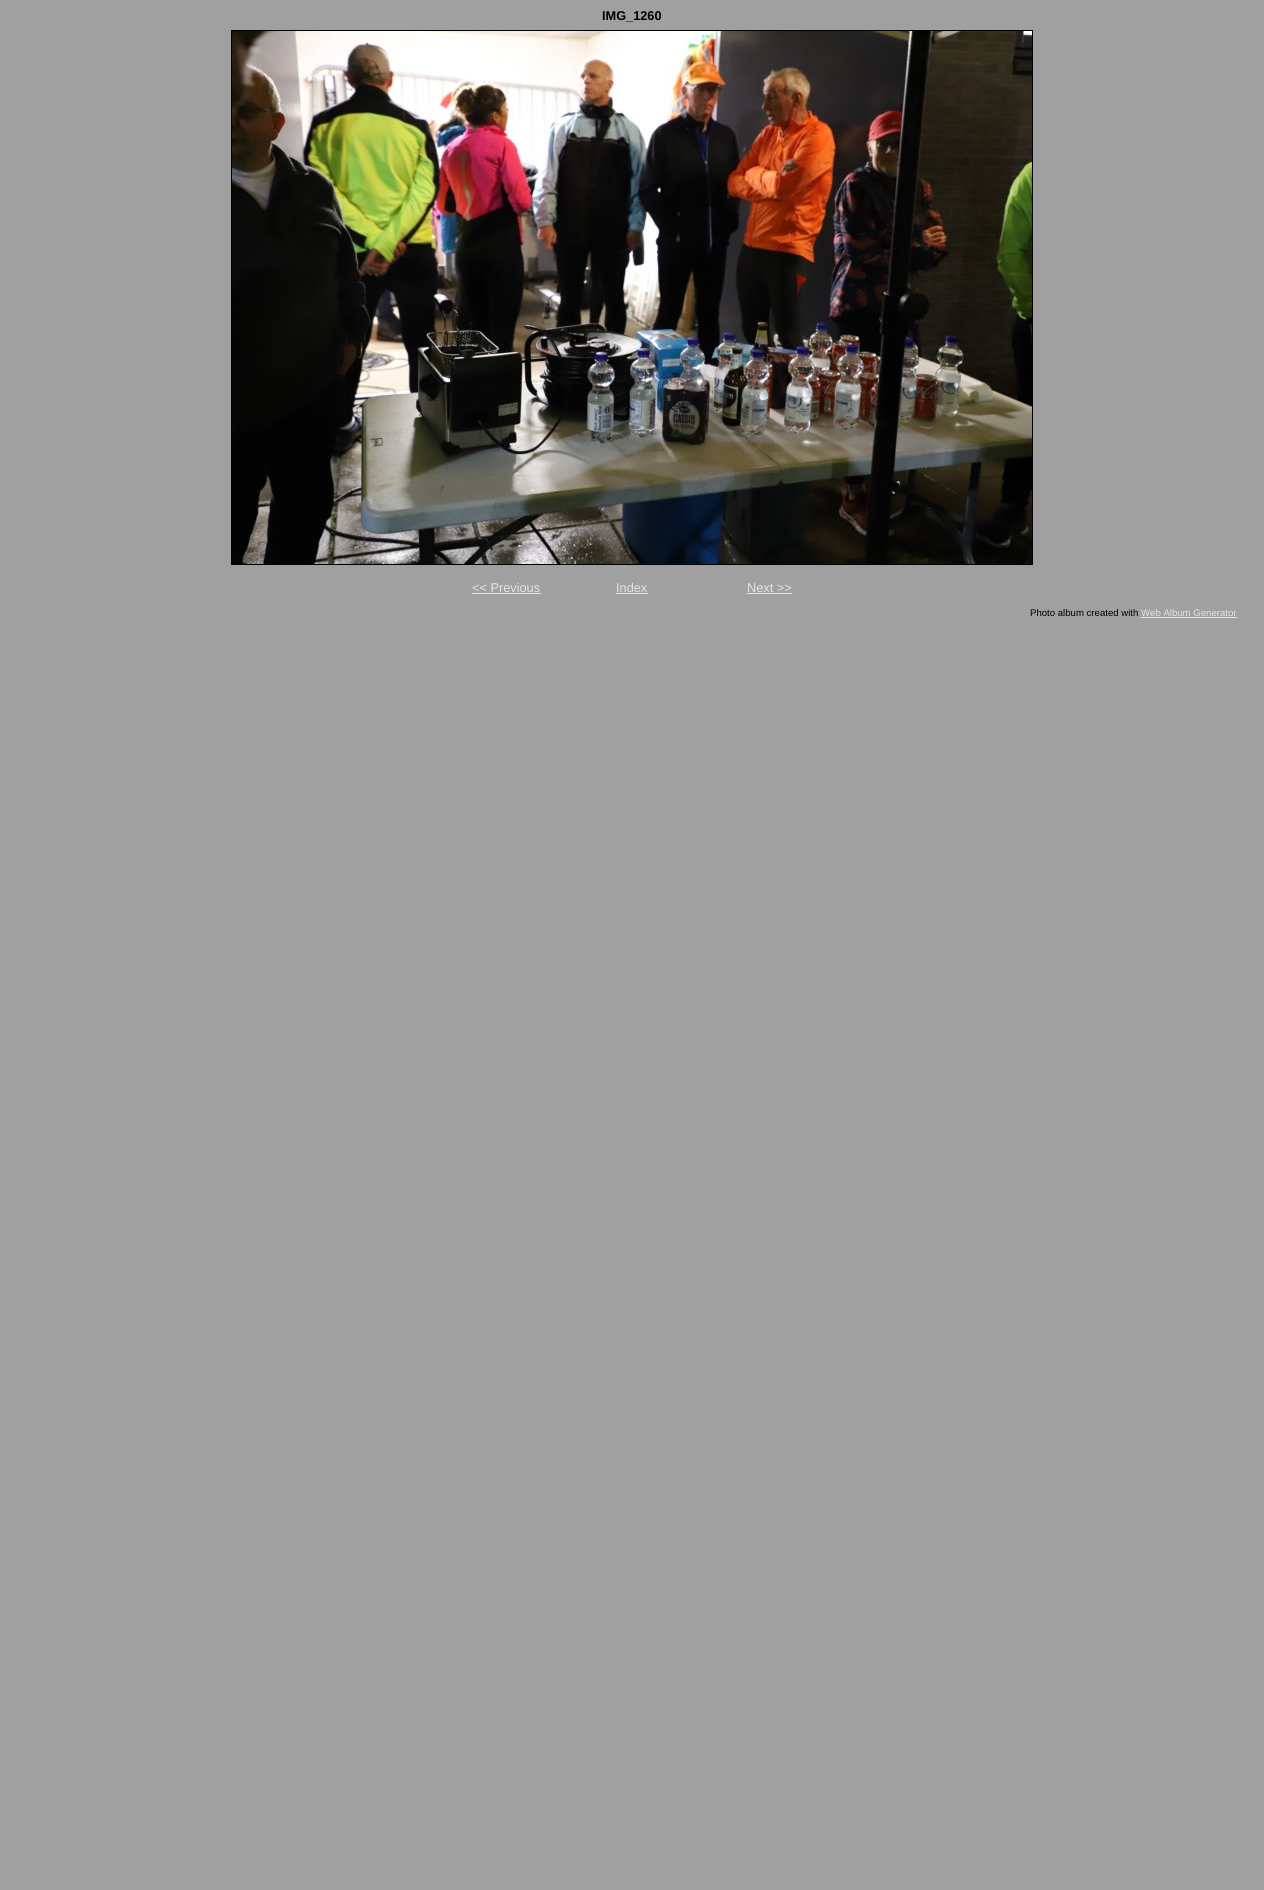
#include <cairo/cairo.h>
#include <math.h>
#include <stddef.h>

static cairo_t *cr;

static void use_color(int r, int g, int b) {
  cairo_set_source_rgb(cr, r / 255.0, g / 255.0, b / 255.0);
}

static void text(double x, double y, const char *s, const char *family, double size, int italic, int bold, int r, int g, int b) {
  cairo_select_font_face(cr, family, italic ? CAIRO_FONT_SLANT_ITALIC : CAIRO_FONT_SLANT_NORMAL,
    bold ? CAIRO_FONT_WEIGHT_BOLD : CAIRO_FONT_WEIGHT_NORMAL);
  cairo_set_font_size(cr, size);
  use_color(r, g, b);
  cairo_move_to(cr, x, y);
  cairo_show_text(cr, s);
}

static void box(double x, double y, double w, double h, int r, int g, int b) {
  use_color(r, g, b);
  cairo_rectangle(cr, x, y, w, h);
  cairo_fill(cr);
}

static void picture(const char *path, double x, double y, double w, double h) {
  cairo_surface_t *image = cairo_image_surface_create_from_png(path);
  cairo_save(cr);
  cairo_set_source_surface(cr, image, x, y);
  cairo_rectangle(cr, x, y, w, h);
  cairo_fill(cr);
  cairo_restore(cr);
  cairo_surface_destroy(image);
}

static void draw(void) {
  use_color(160, 160, 160);
  cairo_paint(cr);
  cairo_rectangle(cr, 231.5, 30.5, 801, 534);
  use_color(0, 0, 0);
  cairo_set_line_width(cr, 1);
  cairo_stroke(cr);
  picture("img_01.png", 232, 31, 800, 533);
  box(472, 593, 69, 1, 228, 228, 228);
  box(616, 593, 32, 1, 228, 228, 228);
  box(747, 593, 45, 1, 228, 228, 228);
  box(1141, 617, 96, 1, 228, 228, 228);
  text(602, 20, "IMG_1260", "Liberation Sans", 12.75, 0, 1, 0, 0, 0);
  text(472, 592, "<< Previous", "Liberation Sans", 12.75, 0, 0, 228, 228, 228);
  text(616, 592, "Index", "Liberation Sans", 12.75, 0, 0, 228, 228, 228);
  text(747, 592, "Next >>", "Liberation Sans", 12.75, 0, 0, 228, 228, 228);
  text(1030, 616, "Photo album created with", "Liberation Sans", 9.6, 0, 0, 0, 0, 0);
  text(1141, 616, "Web Album Generator", "Liberation Sans", 9.6, 0, 0, 228, 228, 228);
}

int main(void) {
  cairo_surface_t *surface = cairo_image_surface_create(CAIRO_FORMAT_RGB24, 1264, 1890);
  cr = cairo_create(surface);
  cairo_font_options_t *options = cairo_font_options_create();
  cairo_font_options_set_hint_metrics(options, CAIRO_HINT_METRICS_OFF);
  cairo_font_options_set_hint_style(options, CAIRO_HINT_STYLE_NONE);
  cairo_set_font_options(cr, options);
  cairo_set_miter_limit(cr, 4);
  draw();
  cairo_surface_write_to_png(surface, "out.png");
  cairo_font_options_destroy(options);
  cairo_destroy(cr);
  cairo_surface_destroy(surface);
  return 0;
}
